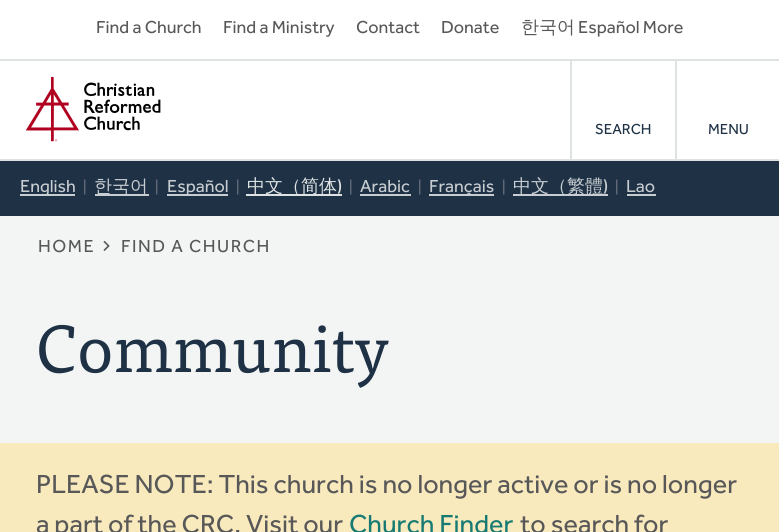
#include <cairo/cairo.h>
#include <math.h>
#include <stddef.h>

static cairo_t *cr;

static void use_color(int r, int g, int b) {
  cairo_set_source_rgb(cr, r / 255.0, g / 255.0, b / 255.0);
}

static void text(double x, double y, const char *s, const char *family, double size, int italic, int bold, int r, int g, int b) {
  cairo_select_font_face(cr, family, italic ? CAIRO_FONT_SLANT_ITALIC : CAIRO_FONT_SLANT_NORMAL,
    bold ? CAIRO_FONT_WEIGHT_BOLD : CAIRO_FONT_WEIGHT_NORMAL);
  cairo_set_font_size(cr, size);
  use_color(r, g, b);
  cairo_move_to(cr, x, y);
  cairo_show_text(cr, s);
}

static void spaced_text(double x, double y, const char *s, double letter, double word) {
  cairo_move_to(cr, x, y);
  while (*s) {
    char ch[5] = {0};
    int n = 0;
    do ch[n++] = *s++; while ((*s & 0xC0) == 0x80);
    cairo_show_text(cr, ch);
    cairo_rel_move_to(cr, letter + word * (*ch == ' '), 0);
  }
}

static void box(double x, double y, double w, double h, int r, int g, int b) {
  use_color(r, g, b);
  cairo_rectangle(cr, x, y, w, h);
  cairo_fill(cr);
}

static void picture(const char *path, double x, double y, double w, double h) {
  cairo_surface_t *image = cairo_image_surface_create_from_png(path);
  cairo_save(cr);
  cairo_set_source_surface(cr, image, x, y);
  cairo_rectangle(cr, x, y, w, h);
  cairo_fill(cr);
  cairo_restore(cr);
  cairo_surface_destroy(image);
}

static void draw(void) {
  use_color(255, 255, 255);
  cairo_paint(cr);
  box(0, 159, 779, 2, 222, 226, 227);
  box(0, 59, 779, 2, 222, 226, 227);
  picture("img_01.png", 26, 77, 135, 65);
  box(570, 60, 2, 99, 222, 226, 227);
  box(675, 60, 2, 99, 222, 226, 227);
  box(0, 161, 779, 55, 30, 49, 69);
  box(20, 194, 55, 2, 200, 205, 209);
  box(95, 194, 54, 2, 200, 205, 209);
  box(167, 194, 61, 2, 200, 205, 209);
  box(246, 194, 96, 2, 222, 226, 227);
  box(360, 194, 51, 2, 200, 205, 209);
  box(429, 194, 65, 2, 200, 205, 209);
  box(513, 194, 95, 2, 200, 205, 209);
  box(627, 194, 29, 2, 200, 205, 209);
  box(0, 216, 779, 227, 243, 245, 245);
  picture("img_02.png", 103, 240, 7, 11);
  box(0, 443, 779, 89, 249, 234, 190);
  text(96, 33, "Find a Church", "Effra", 18, 0, 0, 88, 88, 88);
  text(223, 33, "Find a Ministry", "Effra", 18, 0, 0, 88, 88, 88);
  text(356, 33, "Contact", "Effra", 18, 0, 0, 88, 88, 88);
  text(441, 33, "Donate", "Effra", 18, 0, 0, 88, 88, 88);
  text(521, 33, "한국어", "WenQuanYi Zen Hei Medium", 18, 0, 0, 88, 88, 88);
  text(578, 33, "Español More", "Effra", 18, 0, 0, 88, 88, 88);
  text(595, 134, "SEARCH", "Effra", 15, 0, 0, 30, 49, 69);
  text(708, 134, "MENU", "Effra", 15, 0, 0, 30, 49, 69);
  text(20, 192, "English", "Effra", 18, 0, 0, 200, 205, 209);
  text(83, 192, "|", "Effra", 15, 0, 0, 106, 111, 124);
  text(94, 192, "한국어", "WenQuanYi Zen Hei Medium", 18, 0, 0, 200, 205, 209);
  text(155, 192, "|", "Effra", 15, 0, 0, 106, 111, 124);
  text(167, 192, "Español", "Effra", 18, 0, 0, 200, 205, 209);
  text(236, 192, "|", "Effra", 15, 0, 0, 106, 111, 124);
  text(247, 192, "中文（简体", "WenQuanYi Zen Hei Medium", 18, 0, 0, 222, 226, 227);
  text(337, 192, ")", "Effra", 18, 0, 0, 222, 226, 227);
  text(349, 192, "|", "Effra", 15, 0, 0, 106, 111, 124);
  text(360, 192, "Arabic", "Effra", 18, 0, 0, 200, 205, 209);
  text(418, 192, "|", "Effra", 15, 0, 0, 106, 111, 124);
  text(429, 192, "Français", "Effra", 18, 0, 0, 200, 205, 209);
  text(502, 192, "|", "Effra", 15, 0, 0, 106, 111, 124);
  text(513, 192, "中文（繁體", "WenQuanYi Zen Hei Medium", 18, 0, 0, 200, 205, 209);
  text(603, 192, ")", "Effra", 18, 0, 0, 200, 205, 209);
  text(615, 192, "|", "Effra", 15, 0, 0, 106, 111, 124);
  text(626, 192, "Lao", "Effra", 18, 0, 0, 200, 205, 209);
  use_color(88, 88, 88);
  spaced_text(38, 252, "HOME", 1.5, 0);
  spaced_text(121, 252, "FIND A CHURCH", 1.5, 0);
  text(36, 372, "Community", "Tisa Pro", 66, 0, 0, 30, 49, 69);
  text(36, 493, "PLEASE NOTE: This church is no longer active or is no longer", "Effra", 27, 0, 0, 88, 88, 88);
  text(36, 533, "a part of the CRC. Visit our", "Effra", 27, 0, 0, 88, 88, 88);
  text(349, 533, "Church Finder", "Effra", 27, 0, 0, 24, 123, 115);
  text(520, 533, "to search for", "Effra", 27, 0, 0, 88, 88, 88);
}

int main(void) {
  cairo_surface_t *surface = cairo_image_surface_create(CAIRO_FORMAT_RGB24, 779, 532);
  cr = cairo_create(surface);
  cairo_font_options_t *options = cairo_font_options_create();
  cairo_font_options_set_hint_metrics(options, CAIRO_HINT_METRICS_OFF);
  cairo_font_options_set_hint_style(options, CAIRO_HINT_STYLE_NONE);
  cairo_set_font_options(cr, options);
  cairo_set_miter_limit(cr, 4);
  draw();
  cairo_surface_write_to_png(surface, "out.png");
  cairo_font_options_destroy(options);
  cairo_destroy(cr);
  cairo_surface_destroy(surface);
  return 0;
}
